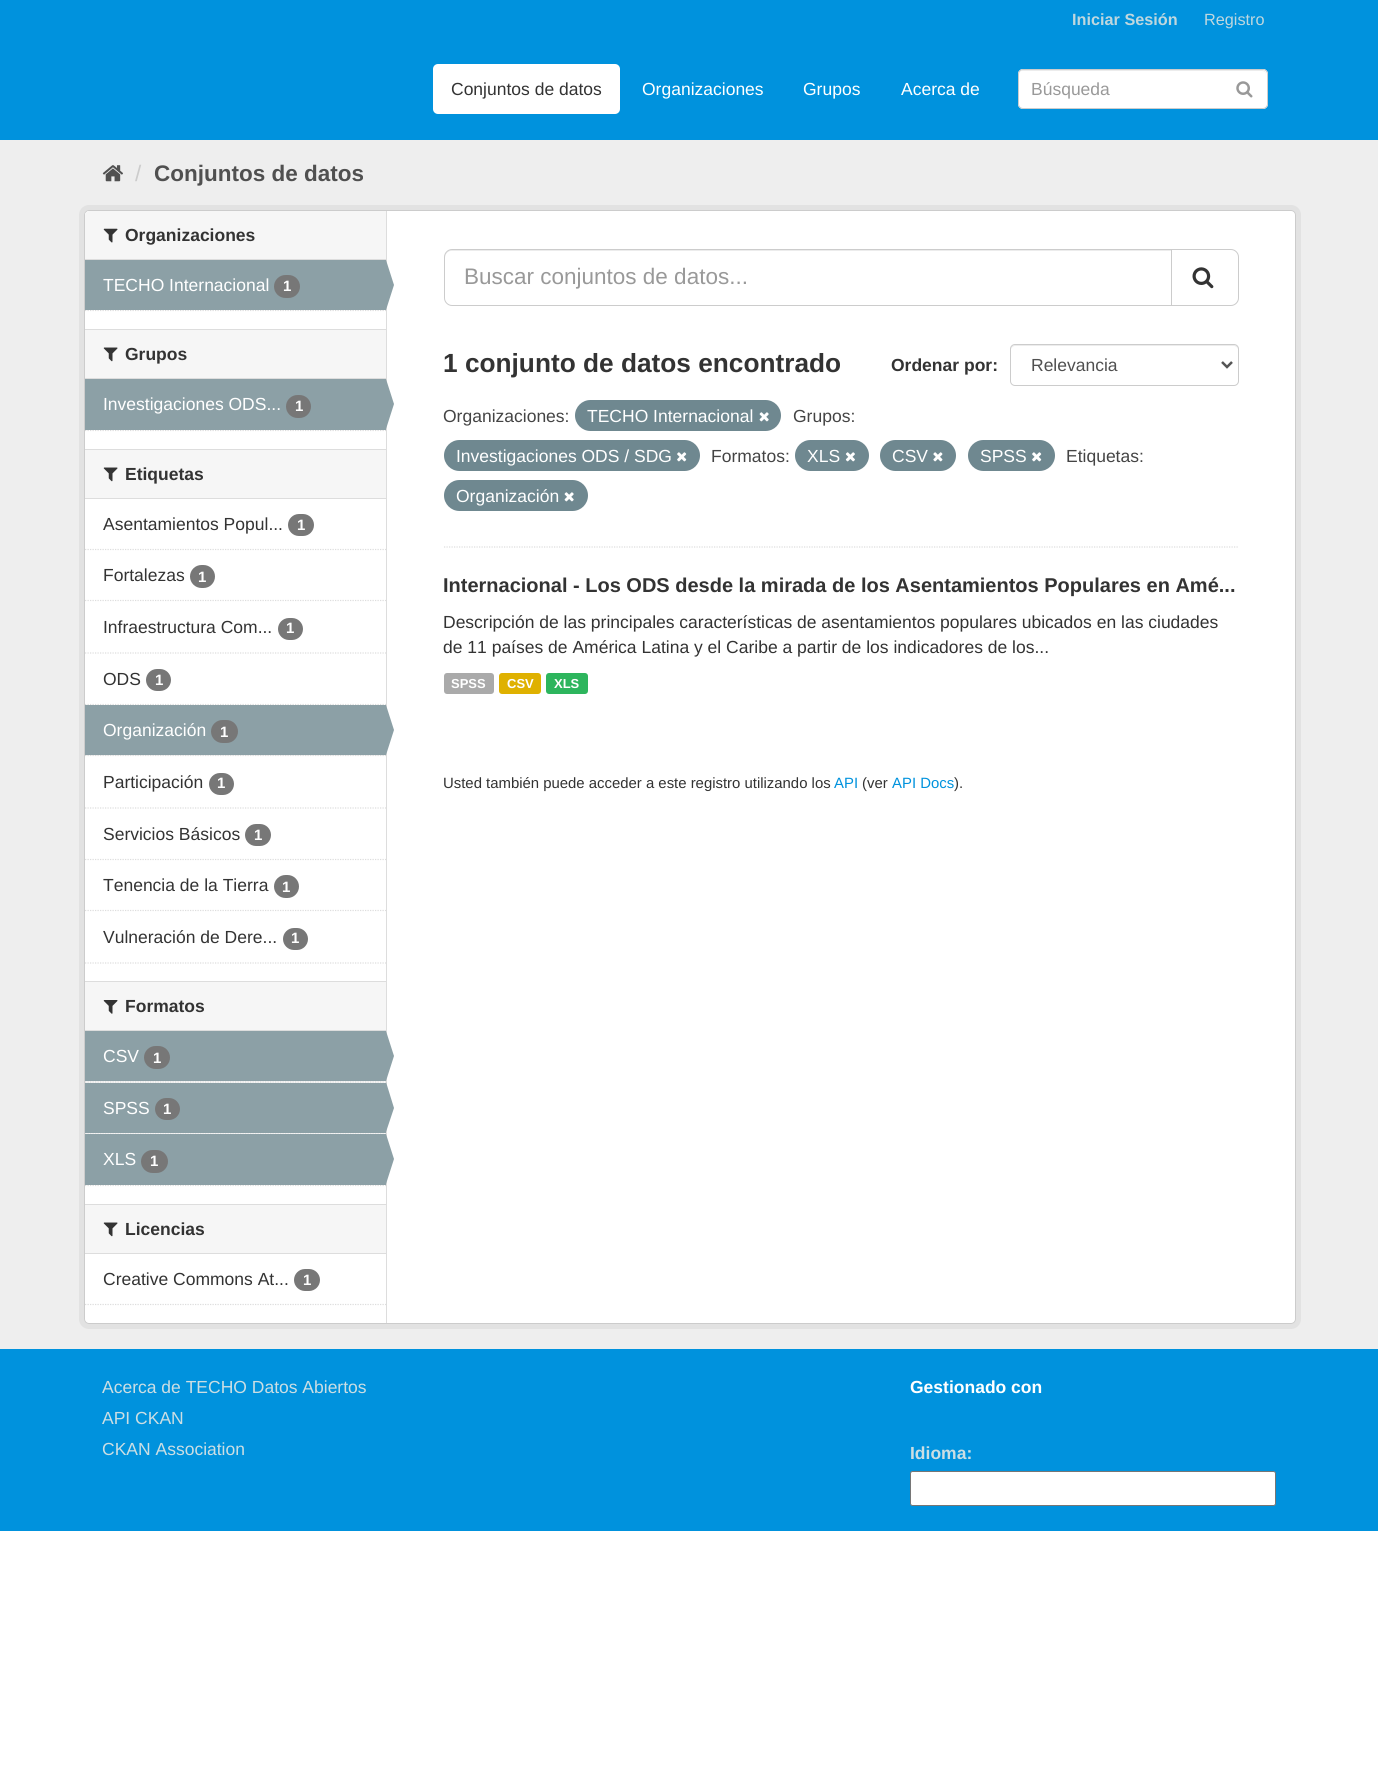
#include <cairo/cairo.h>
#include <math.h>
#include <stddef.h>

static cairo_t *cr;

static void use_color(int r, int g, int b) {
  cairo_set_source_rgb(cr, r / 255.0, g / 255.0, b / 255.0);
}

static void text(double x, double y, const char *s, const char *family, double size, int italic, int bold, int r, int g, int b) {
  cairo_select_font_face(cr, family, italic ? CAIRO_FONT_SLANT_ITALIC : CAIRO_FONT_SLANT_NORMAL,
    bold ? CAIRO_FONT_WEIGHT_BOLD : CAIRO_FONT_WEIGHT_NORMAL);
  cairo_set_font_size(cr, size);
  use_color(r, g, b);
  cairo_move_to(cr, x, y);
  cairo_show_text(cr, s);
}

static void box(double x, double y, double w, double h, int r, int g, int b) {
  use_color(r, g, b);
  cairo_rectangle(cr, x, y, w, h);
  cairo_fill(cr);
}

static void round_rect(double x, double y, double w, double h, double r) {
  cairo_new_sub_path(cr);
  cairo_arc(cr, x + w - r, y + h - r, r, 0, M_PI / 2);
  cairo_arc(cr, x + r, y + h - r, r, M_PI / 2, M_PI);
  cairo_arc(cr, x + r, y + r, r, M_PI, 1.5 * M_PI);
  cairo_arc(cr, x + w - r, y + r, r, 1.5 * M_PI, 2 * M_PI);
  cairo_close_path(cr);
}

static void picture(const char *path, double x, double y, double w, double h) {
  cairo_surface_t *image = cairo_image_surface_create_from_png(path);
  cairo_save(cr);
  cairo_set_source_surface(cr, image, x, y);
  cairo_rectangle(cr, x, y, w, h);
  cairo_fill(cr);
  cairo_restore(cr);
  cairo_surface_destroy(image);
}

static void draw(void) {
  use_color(255, 255, 255);
  cairo_paint(cr);
  box(0, 0, 1378, 140, 0, 146, 221);
  use_color(255, 255, 255);
  round_rect(433, 64, 187, 50, 5);
  cairo_fill(cr);
  round_rect(1018, 69, 250, 40, 5);
  cairo_fill(cr);
  use_color(236, 236, 236);
  cairo_new_path(cr);
  cairo_move_to(cr, 1022, 71);
  cairo_line_to(cr, 1262, 71);
  cairo_curve_to(cr, 1265, 71, 1266, 73, 1266, 75);
  cairo_line_to(cr, 1266, 74);
  cairo_curve_to(cr, 1266, 72, 1264, 70, 1262, 70);
  cairo_line_to(cr, 1023, 70);
  cairo_curve_to(cr, 1021, 70, 1019, 72, 1019, 74);
  cairo_line_to(cr, 1019, 75);
  cairo_curve_to(cr, 1019, 73, 1020, 71, 1022, 71);
  cairo_close_path(cr);
  cairo_fill(cr);
  round_rect(1018.5, 69.5, 249, 39, 4.5);
  use_color(204, 204, 204);
  cairo_set_line_width(cr, 1);
  cairo_stroke(cr);
  picture("img_01.png", 1236, 81, 17, 17);
  box(0, 140, 1378, 1209, 238, 238, 238);
  picture("img_02.png", 102, 165, 21, 17);
  round_rect(81.5, 207.5, 1217, 1119, 7.5);
  use_color(226, 226, 226);
  cairo_set_line_width(cr, 5);
  cairo_stroke(cr);
  use_color(255, 255, 255);
  round_rect(84.5, 210.5, 1211, 1113, 4.5);
  cairo_fill_preserve(cr);
  use_color(204, 204, 204);
  cairo_set_line_width(cr, 1);
  cairo_stroke(cr);
  use_color(246, 246, 246);
  cairo_new_path(cr);
  cairo_move_to(cr, 89, 211);
  cairo_line_to(cr, 386, 211);
  cairo_line_to(cr, 386, 260);
  cairo_line_to(cr, 85, 260);
  cairo_line_to(cr, 85, 215);
  cairo_curve_to(cr, 85, 213, 87, 211, 89, 211);
  cairo_close_path(cr);
  cairo_fill(cr);
  box(85, 259, 301, 1, 221, 221, 221);
  picture("img_03.png", 103, 228, 15, 15);
  cairo_new_path(cr);
  cairo_move_to(cr, 85, 310.5);
  cairo_line_to(cr, 386, 310.5);
  cairo_set_line_width(cr, 1.2);
  cairo_set_dash(cr, (double[]){1.25, 1.25}, 2, 0);
  cairo_stroke(cr);
  box(85, 260, 301, 50, 140, 160, 166);
  use_color(119, 119, 119);
  round_rect(274, 275, 26, 23, 11.5);
  cairo_fill(cr);
  box(386, 211, 1, 1112, 221, 221, 221);
  use_color(140, 160, 166);
  cairo_new_path(cr);
  cairo_move_to(cr, 386, 310);
  cairo_line_to(cr, 386, 260);
  cairo_line_to(cr, 394, 285);
  cairo_close_path(cr);
  cairo_fill(cr);
  box(85, 330, 301, 48, 246, 246, 246);
  box(85, 329, 301, 1, 221, 221, 221);
  box(85, 378, 301, 1, 221, 221, 221);
  picture("img_04.png", 103, 347, 15, 15);
  cairo_new_path(cr);
  cairo_move_to(cr, 85, 430.5);
  cairo_line_to(cr, 386, 430.5);
  cairo_stroke(cr);
  box(85, 379, 301, 51, 140, 160, 166);
  use_color(119, 119, 119);
  round_rect(286, 395, 25, 23, 11.5);
  cairo_fill(cr);
  use_color(140, 160, 166);
  cairo_new_path(cr);
  cairo_move_to(cr, 386, 429);
  cairo_line_to(cr, 386, 379);
  cairo_line_to(cr, 394, 404);
  cairo_close_path(cr);
  cairo_fill(cr);
  box(85, 450, 301, 48, 246, 246, 246);
  box(85, 449, 301, 1, 221, 221, 221);
  box(85, 498, 301, 1, 221, 221, 221);
  picture("img_04.png", 103, 467, 15, 15);
  cairo_new_path(cr);
  cairo_move_to(cr, 85, 549.5);
  cairo_line_to(cr, 386, 549.5);
  cairo_stroke(cr);
  use_color(119, 119, 119);
  round_rect(288, 514, 26, 22, 11);
  cairo_fill(cr);
  cairo_new_path(cr);
  cairo_move_to(cr, 85, 600.5);
  cairo_line_to(cr, 386, 600.5);
  use_color(221, 221, 221);
  cairo_stroke(cr);
  use_color(119, 119, 119);
  round_rect(190, 565, 25, 23, 11.5);
  cairo_fill(cr);
  cairo_new_path(cr);
  cairo_move_to(cr, 85, 653);
  cairo_line_to(cr, 386, 653);
  use_color(221, 221, 221);
  cairo_stroke(cr);
  use_color(119, 119, 119);
  round_rect(278, 618, 25, 22, 11);
  cairo_fill(cr);
  cairo_new_path(cr);
  cairo_move_to(cr, 85, 704.5);
  cairo_line_to(cr, 386, 704.5);
  use_color(221, 221, 221);
  cairo_stroke(cr);
  use_color(119, 119, 119);
  round_rect(146, 669, 25, 22, 11);
  cairo_fill(cr);
  box(86, 755, 299, 1, 246, 246, 246);
  cairo_new_path(cr);
  cairo_move_to(cr, 85, 755.5);
  cairo_line_to(cr, 386, 755.5);
  use_color(221, 221, 221);
  cairo_stroke(cr);
  box(85, 705, 301, 50, 140, 160, 166);
  use_color(119, 119, 119);
  round_rect(211, 720, 27, 23, 11.5);
  cairo_fill(cr);
  use_color(140, 160, 166);
  cairo_new_path(cr);
  cairo_move_to(cr, 386, 755);
  cairo_line_to(cr, 386, 705);
  cairo_line_to(cr, 394, 730);
  cairo_close_path(cr);
  cairo_fill(cr);
  cairo_new_path(cr);
  cairo_move_to(cr, 85, 808);
  cairo_line_to(cr, 386, 808);
  use_color(221, 221, 221);
  cairo_stroke(cr);
  use_color(119, 119, 119);
  round_rect(209, 773, 25, 22, 11);
  cairo_fill(cr);
  cairo_new_path(cr);
  cairo_move_to(cr, 85, 859.5);
  cairo_line_to(cr, 386, 859.5);
  use_color(221, 221, 221);
  cairo_stroke(cr);
  use_color(119, 119, 119);
  round_rect(245, 824, 26, 22, 11);
  cairo_fill(cr);
  cairo_new_path(cr);
  cairo_move_to(cr, 85, 910.5);
  cairo_line_to(cr, 386, 910.5);
  use_color(221, 221, 221);
  cairo_stroke(cr);
  use_color(119, 119, 119);
  round_rect(274, 875, 25, 23, 11.5);
  cairo_fill(cr);
  round_rect(283, 928, 25, 22, 11);
  cairo_fill(cr);
  cairo_new_path(cr);
  cairo_move_to(cr, 85, 963);
  cairo_line_to(cr, 386, 963);
  use_color(221, 221, 221);
  cairo_stroke(cr);
  box(85, 982, 301, 48, 246, 246, 246);
  box(85, 981, 301, 1, 221, 221, 221);
  box(85, 1030, 301, 1, 221, 221, 221);
  picture("img_05.png", 103, 1000, 15, 14);
  box(85, 1081, 301, 2, 246, 246, 246);
  cairo_new_path(cr);
  cairo_move_to(cr, 85, 1082);
  cairo_line_to(cr, 386, 1082);
  use_color(221, 221, 221);
  cairo_stroke(cr);
  box(85, 1031, 301, 50, 140, 160, 166);
  use_color(119, 119, 119);
  round_rect(144, 1046, 26, 23, 11.5);
  cairo_fill(cr);
  use_color(140, 160, 166);
  cairo_new_path(cr);
  cairo_move_to(cr, 386, 1081);
  cairo_line_to(cr, 386, 1031);
  cairo_line_to(cr, 394, 1056);
  cairo_close_path(cr);
  cairo_fill(cr);
  box(85, 1133, 301, 1, 246, 246, 246);
  cairo_new_path(cr);
  cairo_move_to(cr, 85, 1133);
  cairo_line_to(cr, 386, 1133);
  use_color(221, 221, 221);
  cairo_stroke(cr);
  box(85, 1083, 301, 50, 140, 160, 166);
  use_color(119, 119, 119);
  round_rect(155, 1098, 25, 22, 11);
  cairo_fill(cr);
  use_color(140, 160, 166);
  cairo_new_path(cr);
  cairo_move_to(cr, 386, 1132);
  cairo_line_to(cr, 386, 1082);
  cairo_line_to(cr, 394, 1108);
  cairo_close_path(cr);
  cairo_fill(cr);
  cairo_new_path(cr);
  cairo_move_to(cr, 85, 1185.5);
  cairo_line_to(cr, 386, 1185.5);
  use_color(221, 221, 221);
  cairo_stroke(cr);
  box(85, 1134, 301, 51, 140, 160, 166);
  use_color(119, 119, 119);
  round_rect(141, 1150, 27, 23, 11.5);
  cairo_fill(cr);
  use_color(140, 160, 166);
  cairo_new_path(cr);
  cairo_move_to(cr, 386, 1184);
  cairo_line_to(cr, 386, 1134);
  cairo_line_to(cr, 394, 1159);
  cairo_close_path(cr);
  cairo_fill(cr);
  box(85, 1205, 301, 48, 246, 246, 246);
  box(85, 1204, 301, 1, 221, 221, 221);
  box(85, 1253, 301, 1, 221, 221, 221);
  picture("img_04.png", 103, 1222, 15, 15);
  use_color(119, 119, 119);
  round_rect(294, 1269, 26, 22, 11);
  cairo_fill(cr);
  cairo_new_path(cr);
  cairo_move_to(cr, 85, 1304.5);
  cairo_line_to(cr, 386, 1304.5);
  use_color(221, 221, 221);
  cairo_stroke(cr);
  cairo_new_path(cr);
  cairo_move_to(cr, 444, 547);
  cairo_line_to(cr, 1239, 547);
  cairo_stroke(cr);
  use_color(236, 236, 236);
  cairo_new_path(cr);
  cairo_move_to(cr, 451, 251);
  cairo_line_to(cr, 1171, 251);
  cairo_line_to(cr, 1171, 250);
  cairo_line_to(cr, 451, 250);
  cairo_curve_to(cr, 448, 250, 445, 253, 445, 256);
  cairo_line_to(cr, 445, 258);
  cairo_curve_to(cr, 445, 254, 448, 251, 451, 251);
  cairo_close_path(cr);
  cairo_fill(cr);
  cairo_new_path(cr);
  cairo_move_to(cr, 452, 249.5);
  cairo_line_to(cr, 1172.5, 249.5);
  cairo_line_to(cr, 1172.5, 305.5);
  cairo_line_to(cr, 452, 305.5);
  cairo_curve_to(cr, 448, 305.5, 444.5, 302, 444.5, 298);
  cairo_line_to(cr, 444.5, 257);
  cairo_curve_to(cr, 444.5, 253, 448, 249.5, 452, 249.5);
  cairo_close_path(cr);
  use_color(204, 204, 204);
  cairo_set_line_width(cr, 1);
  cairo_set_dash(cr, NULL, 0, 0);
  cairo_stroke(cr);
  use_color(255, 255, 255);
  cairo_new_path(cr);
  cairo_move_to(cr, 1171.5, 249.5);
  cairo_line_to(cr, 1231, 249.5);
  cairo_curve_to(cr, 1235, 249.5, 1238.5, 253, 1238.5, 257);
  cairo_line_to(cr, 1238.5, 298);
  cairo_curve_to(cr, 1238.5, 302, 1235, 305.5, 1231, 305.5);
  cairo_line_to(cr, 1171.5, 305.5);
  cairo_close_path(cr);
  cairo_fill_preserve(cr);
  use_color(204, 204, 204);
  cairo_stroke(cr);
  picture("img_06.png", 1192, 267, 22, 22);
  use_color(236, 236, 236);
  cairo_new_path(cr);
  cairo_move_to(cr, 1015, 346);
  cairo_line_to(cr, 1234, 346);
  cairo_curve_to(cr, 1236, 346, 1238, 348, 1238, 350);
  cairo_curve_to(cr, 1238, 347, 1237, 345, 1234, 345);
  cairo_line_to(cr, 1015, 345);
  cairo_curve_to(cr, 1012, 345, 1011, 347, 1011, 350);
  cairo_curve_to(cr, 1011, 348, 1013, 346, 1015, 346);
  cairo_close_path(cr);
  cairo_fill(cr);
  round_rect(1010.5, 344.5, 228, 41, 4.5);
  use_color(204, 204, 204);
  cairo_stroke(cr);
  cairo_new_path(cr);
  cairo_move_to(cr, 1222, 362);
  cairo_line_to(cr, 1227, 367);
  cairo_line_to(cr, 1232, 362);
  use_color(85, 85, 85);
  cairo_set_line_width(cr, 2.5);
  cairo_stroke(cr);
  use_color(111, 136, 144);
  round_rect(575, 400, 206, 31, 15.5);
  cairo_fill(cr);
  picture("img_07.png", 759, 412, 10, 10);
  round_rect(444, 440, 256, 31, 15.5);
  cairo_fill(cr);
  picture("img_08.png", 677, 452, 10, 10);
  round_rect(795, 440, 74, 31, 15.5);
  cairo_fill(cr);
  picture("img_09.png", 845, 452, 10, 10);
  round_rect(880, 440, 76, 31, 15.5);
  cairo_fill(cr);
  picture("img_10.png", 933, 452, 10, 10);
  round_rect(968, 440, 87, 31, 15.5);
  cairo_fill(cr);
  picture("img_08.png", 1032, 452, 10, 10);
  round_rect(444, 480, 144, 31, 15.5);
  cairo_fill(cr);
  picture("img_07.png", 564, 492, 10, 10);
  use_color(170, 170, 170);
  round_rect(444, 673, 50, 21, 3);
  cairo_fill(cr);
  use_color(223, 177, 0);
  round_rect(499, 673, 42, 21, 3);
  cairo_fill(cr);
  use_color(45, 181, 93);
  round_rect(546, 673, 42, 21, 3);
  cairo_fill(cr);
  box(0, 1349, 1378, 182, 0, 146, 221);
  use_color(255, 255, 255);
  round_rect(910.5, 1471.5, 365, 34, 2);
  cairo_fill_preserve(cr);
  use_color(118, 118, 118);
  cairo_set_line_width(cr, 1);
  cairo_stroke(cr);
  text(1072, 25, "Iniciar Sesión", "Liberation Sans", 16.25, 0, 1, 191, 215, 222);
  text(1204, 25, "Registro", "Liberation Sans", 16.25, 0, 0, 191, 215, 222);
  text(451, 95, "Conjuntos de datos", "Liberation Sans", 17.5, 0, 0, 51, 51, 51);
  text(642, 95, "Organizaciones", "Liberation Sans", 17.5, 0, 0, 255, 255, 255);
  text(803, 95, "Grupos", "Liberation Sans", 17.5, 0, 0, 255, 255, 255);
  text(901, 95, "Acerca de", "Liberation Sans", 17.5, 0, 0, 255, 255, 255);
  text(1031, 95, "Búsqueda", "Liberation Sans", 17.5, 0, 0, 153, 153, 153);
  text(135, 181, "/", "Liberation Sans", 22.5, 0, 0, 204, 204, 204);
  text(154, 181, "Conjuntos de datos", "Liberation Sans", 22.5, 0, 1, 80, 80, 80);
  text(125, 241, "Organizaciones", "Liberation Sans", 17.5, 0, 1, 51, 51, 51);
  text(103, 291, "TECHO Internacional", "Liberation Sans", 17.5, 0, 0, 255, 255, 255);
  text(283, 291, "1", "Liberation Sans", 15, 0, 1, 255, 255, 255);
  text(125, 360, "Grupos", "Liberation Sans", 17.5, 0, 1, 51, 51, 51);
  text(103, 410, "Investigaciones ODS...", "Liberation Sans", 17.5, 0, 0, 255, 255, 255);
  text(295, 411, "1", "Liberation Sans", 15, 0, 1, 255, 255, 255);
  text(125, 480, "Etiquetas", "Liberation Sans", 17.5, 0, 1, 51, 51, 51);
  text(103, 530, "Asentamientos Popul...", "Liberation Sans", 17.5, 0, 0, 51, 51, 51);
  text(297, 530, "1", "Liberation Sans", 15, 0, 1, 255, 255, 255);
  text(103, 581, "Fortalezas", "Liberation Sans", 17.5, 0, 0, 51, 51, 51);
  text(198, 582, "1", "Liberation Sans", 15, 0, 1, 255, 255, 255);
  text(103, 633, "Infraestructura Com...", "Liberation Sans", 17.5, 0, 0, 51, 51, 51);
  text(286, 633, "1", "Liberation Sans", 15, 0, 1, 255, 255, 255);
  text(103, 685, "ODS", "Liberation Sans", 17.5, 0, 0, 51, 51, 51);
  text(155, 685, "1", "Liberation Sans", 15, 0, 1, 255, 255, 255);
  text(103, 736, "Organización", "Liberation Sans", 17.5, 0, 0, 255, 255, 255);
  text(220, 737, "1", "Liberation Sans", 15, 0, 1, 255, 255, 255);
  text(103, 788, "Participación", "Liberation Sans", 17.5, 0, 0, 51, 51, 51);
  text(217, 788, "1", "Liberation Sans", 15, 0, 1, 255, 255, 255);
  text(103, 840, "Servicios Básicos", "Liberation Sans", 17.5, 0, 0, 51, 51, 51);
  text(254, 840, "1", "Liberation Sans", 15, 0, 1, 255, 255, 255);
  text(103, 891, "Tenencia de la Tierra", "Liberation Sans", 17.5, 0, 0, 51, 51, 51);
  text(282, 892, "1", "Liberation Sans", 15, 0, 1, 255, 255, 255);
  text(103, 943, "Vulneración de Dere...", "Liberation Sans", 17.5, 0, 0, 51, 51, 51);
  text(291, 943, "1", "Liberation Sans", 15, 0, 1, 255, 255, 255);
  text(125, 1012, "Formatos", "Liberation Sans", 17.5, 0, 1, 51, 51, 51);
  text(103, 1062, "CSV", "Liberation Sans", 17.5, 0, 0, 255, 255, 255);
  text(153, 1063, "1", "Liberation Sans", 15, 0, 1, 255, 255, 255);
  text(103, 1114, "SPSS", "Liberation Sans", 17.5, 0, 0, 255, 255, 255);
  text(163, 1114, "1", "Liberation Sans", 15, 0, 1, 255, 255, 255);
  text(103, 1165, "XLS", "Liberation Sans", 17.5, 0, 0, 255, 255, 255);
  text(150, 1166, "1", "Liberation Sans", 15, 0, 1, 255, 255, 255);
  text(125, 1235, "Licencias", "Liberation Sans", 17.5, 0, 1, 51, 51, 51);
  text(103, 1285, "Creative Commons At...", "Liberation Sans", 17.5, 0, 0, 51, 51, 51);
  text(303, 1285, "1", "Liberation Sans", 15, 0, 1, 255, 255, 255);
  text(464, 284, "Buscar conjuntos de datos...", "Liberation Sans", 22.5, 0, 0, 153, 153, 153);
  text(443, 372, "1 conjunto de datos encontrado", "Liberation Sans", 26.25, 0, 1, 51, 51, 51);
  text(891, 371, "Ordenar por:", "Liberation Sans", 17.5, 0, 1, 51, 51, 51);
  text(1031, 371, "Relevancia", "Liberation Sans", 17.5, 0, 0, 80, 80, 80);
  text(443, 422, "Organizaciones:", "Liberation Sans", 17.5, 0, 0, 68, 68, 68);
  text(587, 422, "TECHO Internacional", "Liberation Sans", 17.5, 0, 0, 255, 255, 255);
  text(793, 422, "Grupos:", "Liberation Sans", 17.5, 0, 0, 68, 68, 68);
  text(456, 462, "Investigaciones ODS / SDG", "Liberation Sans", 17.5, 0, 0, 255, 255, 255);
  text(711, 462, "Formatos:", "Liberation Sans", 17.5, 0, 0, 68, 68, 68);
  text(807, 462, "XLS", "Liberation Sans", 17.5, 0, 0, 255, 255, 255);
  text(892, 462, "CSV", "Liberation Sans", 17.5, 0, 0, 255, 255, 255);
  text(980, 462, "SPSS", "Liberation Sans", 17.5, 0, 0, 255, 255, 255);
  text(1066, 462, "Etiquetas:", "Liberation Sans", 17.5, 0, 0, 68, 68, 68);
  text(456, 502, "Organización", "Liberation Sans", 17.5, 0, 0, 255, 255, 255);
  text(443, 592, "Internacional - Los ODS desde la mirada de los Asentamientos Populares en Amé...", "Liberation Sans", 20, 0, 1, 51, 51, 51);
  text(443, 628, "Descripción de las principales características de asentamientos populares ubicados en las ciudades", "Liberation Sans", 17.5, 0, 0, 51, 51, 51);
  text(443, 653, "de 11 países de América Latina y el Caribe a partir de los indicadores de los...", "Liberation Sans", 17.5, 0, 0, 51, 51, 51);
  text(451, 688, "SPSS", "Liberation Sans", 13, 0, 1, 255, 255, 255);
  text(507, 688, "CSV", "Liberation Sans", 13, 0, 1, 255, 255, 255);
  text(554, 688, "XLS", "Liberation Sans", 13, 0, 1, 255, 255, 255);
  text(443, 788, "Usted también puede acceder a este registro utilizando los", "Liberation Sans", 14.9, 0, 0, 51, 51, 51);
  text(834, 788, "API", "Liberation Sans", 14.9, 0, 0, 0, 146, 221);
  text(862, 788, "(ver", "Liberation Sans", 14.9, 0, 0, 51, 51, 51);
  text(892, 788, "API Docs", "Liberation Sans", 14.9, 0, 0, 0, 146, 221);
  text(954, 788, ").", "Liberation Sans", 14.9, 0, 0, 51, 51, 51);
  text(102, 1393, "Acerca de TECHO Datos Abiertos", "Liberation Sans", 17.5, 0, 0, 204, 222, 227);
  text(102, 1424, "API CKAN", "Liberation Sans", 17.5, 0, 0, 204, 222, 227);
  text(102, 1455, "CKAN Association", "Liberation Sans", 17.5, 0, 0, 204, 222, 227);
  text(910, 1393, "Gestionado con", "Liberation Sans", 17.5, 0, 1, 255, 255, 255);
  text(910, 1459, "Idioma:", "Liberation Sans", 17.5, 0, 1, 204, 222, 227);
}

int main(void) {
  cairo_surface_t *surface = cairo_image_surface_create(CAIRO_FORMAT_RGB24, 1378, 1779);
  cr = cairo_create(surface);
  cairo_font_options_t *options = cairo_font_options_create();
  cairo_font_options_set_hint_metrics(options, CAIRO_HINT_METRICS_OFF);
  cairo_font_options_set_hint_style(options, CAIRO_HINT_STYLE_NONE);
  cairo_set_font_options(cr, options);
  cairo_set_miter_limit(cr, 4);
  draw();
  cairo_surface_write_to_png(surface, "out.png");
  cairo_font_options_destroy(options);
  cairo_destroy(cr);
  cairo_surface_destroy(surface);
  return 0;
}
